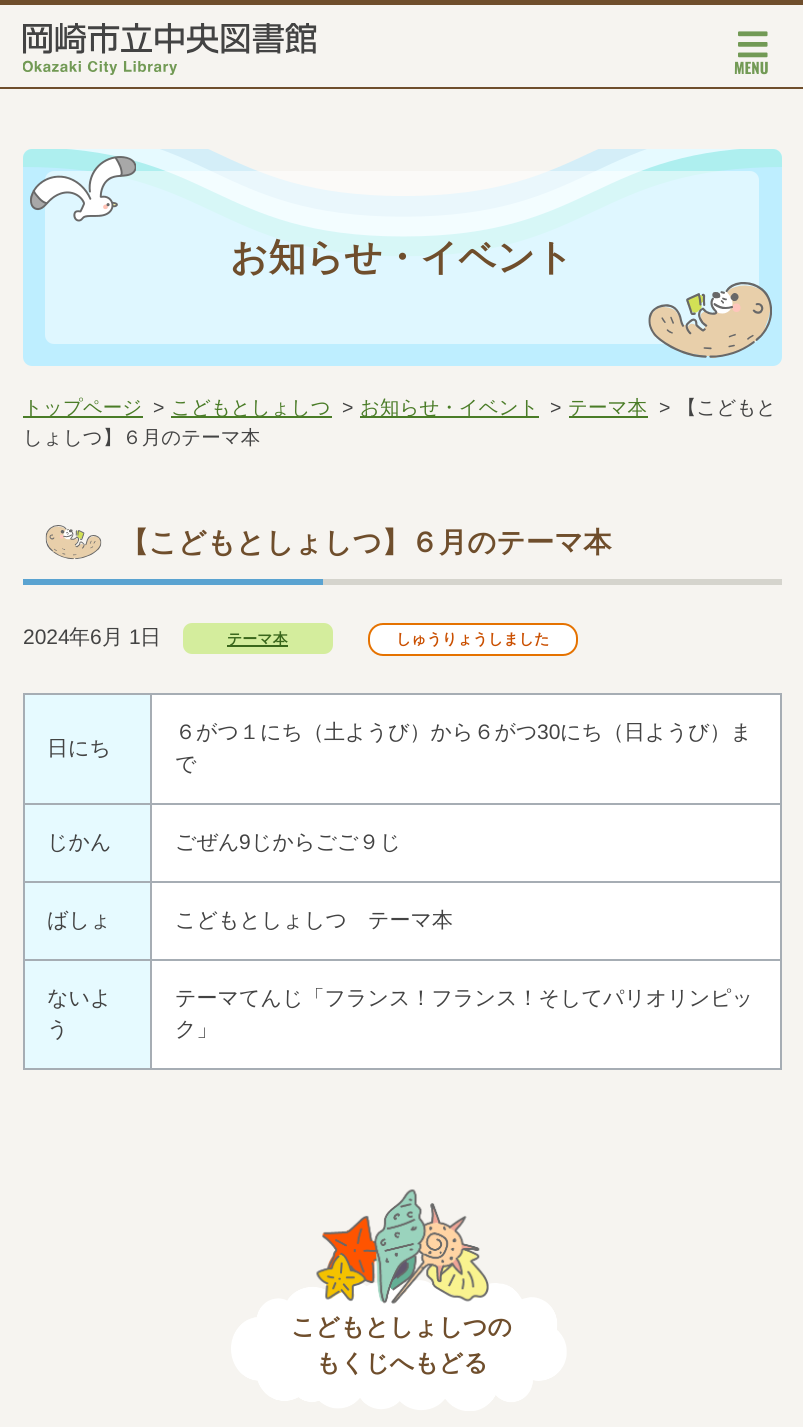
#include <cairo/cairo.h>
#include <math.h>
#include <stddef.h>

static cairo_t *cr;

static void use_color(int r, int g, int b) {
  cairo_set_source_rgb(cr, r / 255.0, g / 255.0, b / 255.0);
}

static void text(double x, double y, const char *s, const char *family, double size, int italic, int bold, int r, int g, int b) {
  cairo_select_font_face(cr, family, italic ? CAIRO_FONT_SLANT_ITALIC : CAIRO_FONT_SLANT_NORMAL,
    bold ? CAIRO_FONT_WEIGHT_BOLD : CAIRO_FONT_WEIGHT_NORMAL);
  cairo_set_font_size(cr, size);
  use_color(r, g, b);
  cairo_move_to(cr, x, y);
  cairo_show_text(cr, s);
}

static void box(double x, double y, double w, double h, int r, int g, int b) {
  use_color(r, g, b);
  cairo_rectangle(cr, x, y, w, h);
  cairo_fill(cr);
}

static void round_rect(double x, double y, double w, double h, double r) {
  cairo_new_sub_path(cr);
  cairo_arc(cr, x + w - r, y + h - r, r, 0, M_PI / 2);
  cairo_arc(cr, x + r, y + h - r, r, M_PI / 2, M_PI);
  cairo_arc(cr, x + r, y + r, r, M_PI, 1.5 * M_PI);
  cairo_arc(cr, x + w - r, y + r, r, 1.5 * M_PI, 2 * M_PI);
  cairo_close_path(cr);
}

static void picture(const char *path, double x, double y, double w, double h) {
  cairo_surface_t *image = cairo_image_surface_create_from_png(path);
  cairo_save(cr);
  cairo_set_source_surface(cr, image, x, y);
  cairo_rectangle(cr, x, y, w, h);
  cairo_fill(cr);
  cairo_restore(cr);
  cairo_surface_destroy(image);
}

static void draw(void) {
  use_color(246, 244, 240);
  cairo_paint(cr);
  box(0, 0, 803, 5, 111, 78, 44);
  box(0, 87, 803, 2, 111, 78, 44);
  picture("img_01.png", 23, 23, 294, 52);
  picture("img_02.png", 738, 31, 30, 27);
  picture("img_03.png", 23, 149, 759, 217);
  cairo_set_source_rgba(cr, 1, 1, 1, 0.5);
  round_rect(45, 171, 714, 173, 9);
  cairo_fill(cr);
  picture("img_04.png", 30, 156, 106, 66);
  picture("img_05.png", 648, 282, 124, 77);
  box(23, 416, 120, 2, 74, 124, 39);
  box(171, 416, 161, 2, 74, 124, 39);
  box(360, 416, 179, 2, 74, 124, 39);
  box(569, 416, 79, 2, 74, 124, 39);
  box(323, 579, 459, 6, 213, 212, 205);
  picture("img_06.png", 45, 525, 57, 35);
  box(23, 579, 300, 6, 90, 163, 209);
  use_color(212, 237, 157);
  round_rect(183, 623, 150, 31, 9);
  cairo_fill(cr);
  box(227, 645, 61, 2, 58, 103, 28);
  use_color(255, 255, 255);
  round_rect(369, 624, 208, 31, 14);
  cairo_fill_preserve(cr);
  use_color(229, 114, 0);
  cairo_stroke(cr);
  box(25, 695, 125, 108, 230, 250, 255);
  box(150, 693, 632, 2, 166, 173, 180);
  box(150, 803, 632, 2, 166, 173, 180);
  box(150, 881, 632, 2, 166, 173, 180);
  box(150, 959, 632, 2, 166, 173, 180);
  box(780, 959, 2, 111, 166, 173, 180);
  box(150, 1068, 632, 2, 166, 173, 180);
  box(150, 959, 2, 111, 166, 173, 180);
  box(23, 959, 129, 2, 166, 173, 180);
  box(150, 881, 2, 79, 166, 173, 180);
  box(23, 881, 129, 2, 166, 173, 180);
  box(150, 803, 2, 79, 166, 173, 180);
  box(23, 803, 129, 2, 166, 173, 180);
  box(150, 693, 2, 111, 166, 173, 180);
  box(23, 693, 129, 2, 166, 173, 180);
  box(23, 1068, 129, 2, 166, 173, 180);
  box(23, 959, 2, 111, 166, 173, 180);
  box(23, 881, 2, 79, 166, 173, 180);
  box(23, 803, 2, 79, 166, 173, 180);
  box(23, 693, 2, 111, 166, 173, 180);
  box(152, 695, 628, 108, 255, 255, 255);
  box(780, 881, 2, 79, 166, 173, 180);
  box(780, 803, 2, 79, 166, 173, 180);
  box(780, 693, 2, 111, 166, 173, 180);
  box(25, 805, 125, 76, 230, 250, 255);
  box(152, 805, 628, 76, 255, 255, 255);
  box(25, 883, 125, 76, 230, 250, 255);
  box(152, 883, 628, 76, 255, 255, 255);
  box(25, 961, 125, 107, 230, 250, 255);
  box(152, 961, 628, 107, 255, 255, 255);
  picture("img_07.png", 231, 1280, 336, 131);
  picture("img_08.png", 316, 1189, 173, 115);
  text(734, 74, "MENU", "Oswald", 15, 0, 1, 114, 154, 85);
  text(230, 270, "お知らせ・イベント", "WenQuanYi Zen Hei", 37.5, 0, 1, 111, 78, 44);
  text(659, 414, ">", "Liberation Sans", 19.5, 0, 0, 67, 67, 67);
  text(677, 414, "【こどもと", "WenQuanYi Zen Hei Medium", 19.5, 0, 0, 67, 67, 67);
  text(23, 444, "しょしつ】６月のテーマ本", "WenQuanYi Zen Hei Medium", 19.5, 0, 0, 67, 67, 67);
  text(23, 414, "トップページ", "WenQuanYi Zen Hei Medium", 19.5, 0, 0, 74, 124, 39);
  text(153, 414, ">", "Liberation Sans", 19.5, 0, 0, 67, 67, 67);
  text(171, 414, "こどもとしょしつ", "WenQuanYi Zen Hei Medium", 19.5, 0, 0, 74, 124, 39);
  text(342, 414, ">", "Liberation Sans", 19.5, 0, 0, 67, 67, 67);
  text(360, 414, "お知らせ・イベント", "WenQuanYi Zen Hei Medium", 19.5, 0, 0, 74, 124, 39);
  text(550, 414, ">", "Liberation Sans", 19.5, 0, 0, 67, 67, 67);
  text(568, 414, "テーマ本", "WenQuanYi Zen Hei Medium", 19.5, 0, 0, 74, 124, 39);
  text(120, 552, "【こどもとしょしつ】６月のテーマ本", "WenQuanYi Zen Hei", 28.5, 0, 1, 111, 78, 44);
  text(23, 644, "2024", "Liberation Sans", 21, 0, 0, 67, 67, 67);
  text(69, 644, "年", "WenQuanYi Zen Hei Medium", 21, 0, 0, 67, 67, 67);
  text(90, 644, "6", "Liberation Sans", 21, 0, 0, 67, 67, 67);
  text(102, 644, "月", "WenQuanYi Zen Hei Medium", 21, 0, 0, 67, 67, 67);
  text(129, 644, "1", "Liberation Sans", 21, 0, 0, 67, 67, 67);
  text(140, 644, "日", "WenQuanYi Zen Hei Medium", 21, 0, 0, 67, 67, 67);
  text(227, 644, "テーマ本", "WenQuanYi Zen Hei", 15, 0, 1, 58, 103, 28);
  text(396, 644, "しゅうりょうしました", "WenQuanYi Zen Hei", 15, 0, 1, 202, 79, 0);
  text(47, 755, "日にち", "WenQuanYi Zen Hei Medium", 21, 0, 0, 67, 67, 67);
  text(175, 739, "６がつ１にち（土ようび）から６がつ", "WenQuanYi Zen Hei Medium", 21, 0, 0, 67, 67, 67);
  text(537, 739, "30", "Liberation Sans", 21, 0, 0, 67, 67, 67);
  text(560, 739, "にち（日ようび）ま", "WenQuanYi Zen Hei Medium", 21, 0, 0, 67, 67, 67);
  text(175, 771, "で", "WenQuanYi Zen Hei Medium", 21, 0, 0, 67, 67, 67);
  text(47, 849, "じかん", "WenQuanYi Zen Hei Medium", 21, 0, 0, 67, 67, 67);
  text(175, 849, "ごぜん", "WenQuanYi Zen Hei Medium", 21, 0, 0, 67, 67, 67);
  text(239, 849, "9", "Liberation Sans", 21, 0, 0, 67, 67, 67);
  text(251, 849, "じからごご９じ", "WenQuanYi Zen Hei Medium", 21, 0, 0, 67, 67, 67);
  text(47, 927, "ばしょ", "WenQuanYi Zen Hei Medium", 21, 0, 0, 67, 67, 67);
  text(175, 927, "こどもとしょしつ　テーマ本", "WenQuanYi Zen Hei Medium", 21, 0, 0, 67, 67, 67);
  text(47, 1005, "ないよ", "WenQuanYi Zen Hei Medium", 21, 0, 0, 67, 67, 67);
  text(47, 1036, "う", "WenQuanYi Zen Hei Medium", 21, 0, 0, 67, 67, 67);
  text(175, 1005, "テーマてんじ「フランス！フランス！そしてパリオリンピッ", "WenQuanYi Zen Hei Medium", 21, 0, 0, 67, 67, 67);
  text(175, 1036, "ク」", "WenQuanYi Zen Hei Medium", 21, 0, 0, 67, 67, 67);
  text(291, 1335, "こどもとしょしつの", "WenQuanYi Zen Hei", 24, 0, 1, 111, 78, 44);
  text(316, 1371, "もくじへもどる", "WenQuanYi Zen Hei", 24, 0, 1, 111, 78, 44);
}

int main(void) {
  cairo_surface_t *surface = cairo_image_surface_create(CAIRO_FORMAT_RGB24, 803, 1427);
  cr = cairo_create(surface);
  cairo_font_options_t *options = cairo_font_options_create();
  cairo_font_options_set_hint_metrics(options, CAIRO_HINT_METRICS_OFF);
  cairo_font_options_set_hint_style(options, CAIRO_HINT_STYLE_NONE);
  cairo_set_font_options(cr, options);
  cairo_set_miter_limit(cr, 4);
  draw();
  cairo_surface_write_to_png(surface, "out.png");
  cairo_font_options_destroy(options);
  cairo_destroy(cr);
  cairo_surface_destroy(surface);
  return 0;
}
